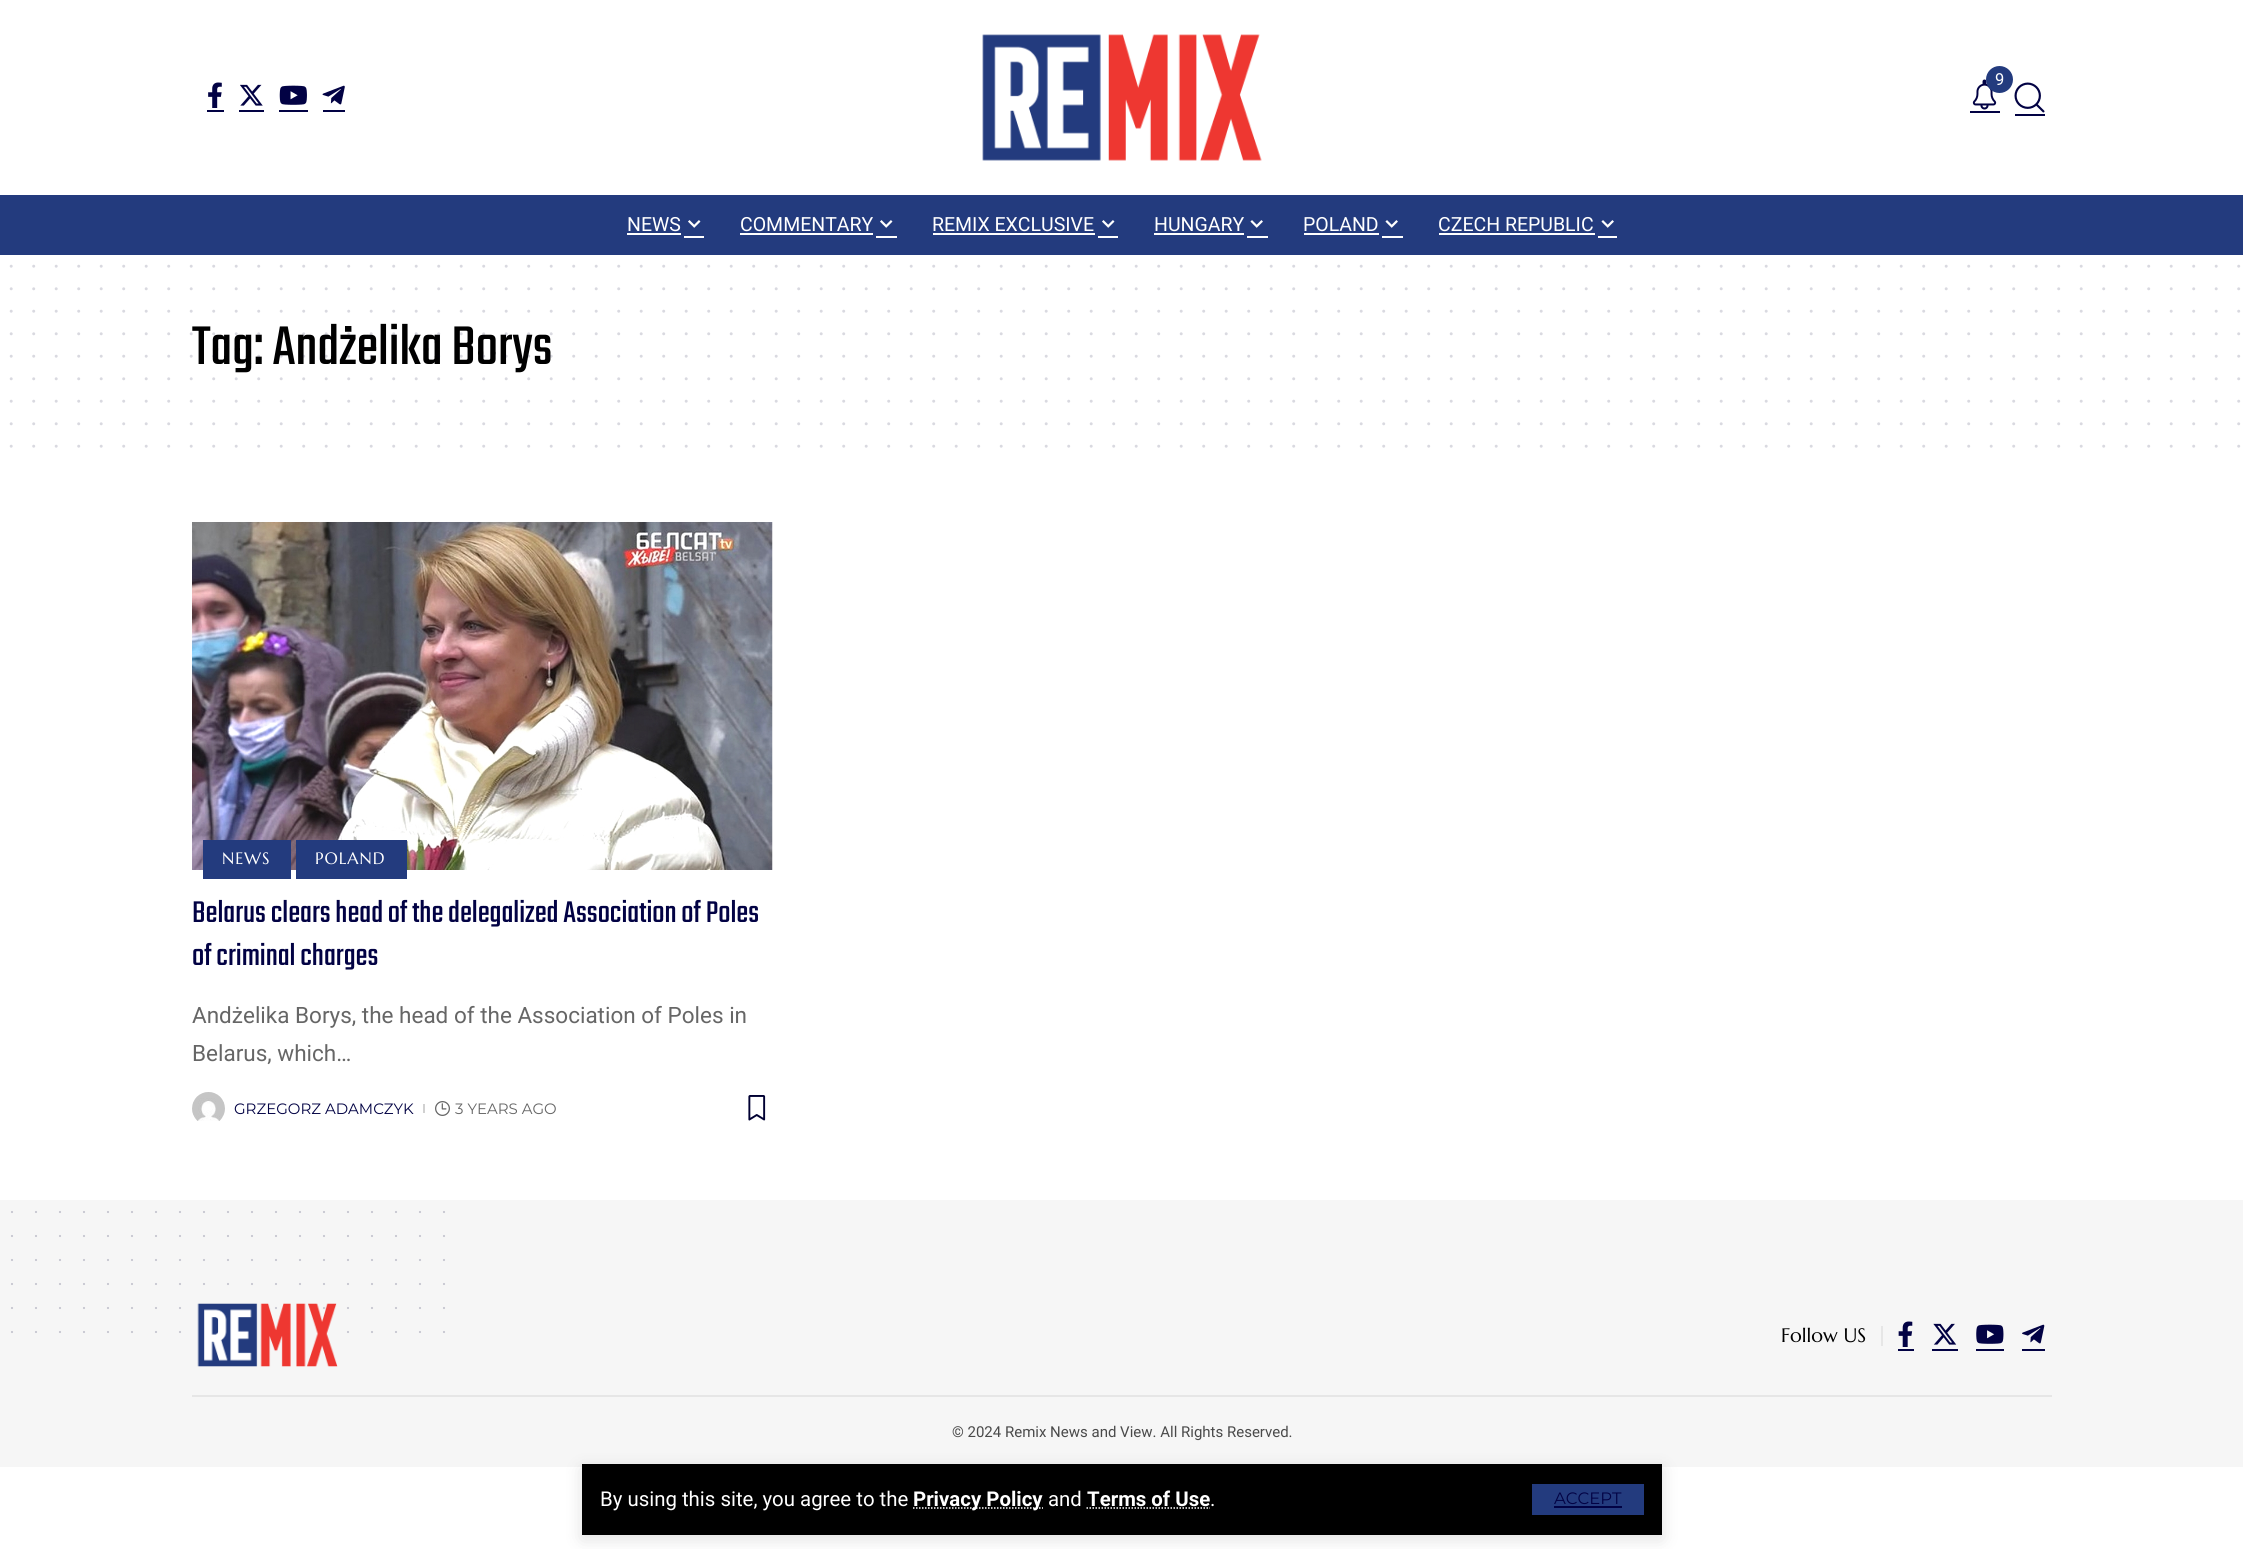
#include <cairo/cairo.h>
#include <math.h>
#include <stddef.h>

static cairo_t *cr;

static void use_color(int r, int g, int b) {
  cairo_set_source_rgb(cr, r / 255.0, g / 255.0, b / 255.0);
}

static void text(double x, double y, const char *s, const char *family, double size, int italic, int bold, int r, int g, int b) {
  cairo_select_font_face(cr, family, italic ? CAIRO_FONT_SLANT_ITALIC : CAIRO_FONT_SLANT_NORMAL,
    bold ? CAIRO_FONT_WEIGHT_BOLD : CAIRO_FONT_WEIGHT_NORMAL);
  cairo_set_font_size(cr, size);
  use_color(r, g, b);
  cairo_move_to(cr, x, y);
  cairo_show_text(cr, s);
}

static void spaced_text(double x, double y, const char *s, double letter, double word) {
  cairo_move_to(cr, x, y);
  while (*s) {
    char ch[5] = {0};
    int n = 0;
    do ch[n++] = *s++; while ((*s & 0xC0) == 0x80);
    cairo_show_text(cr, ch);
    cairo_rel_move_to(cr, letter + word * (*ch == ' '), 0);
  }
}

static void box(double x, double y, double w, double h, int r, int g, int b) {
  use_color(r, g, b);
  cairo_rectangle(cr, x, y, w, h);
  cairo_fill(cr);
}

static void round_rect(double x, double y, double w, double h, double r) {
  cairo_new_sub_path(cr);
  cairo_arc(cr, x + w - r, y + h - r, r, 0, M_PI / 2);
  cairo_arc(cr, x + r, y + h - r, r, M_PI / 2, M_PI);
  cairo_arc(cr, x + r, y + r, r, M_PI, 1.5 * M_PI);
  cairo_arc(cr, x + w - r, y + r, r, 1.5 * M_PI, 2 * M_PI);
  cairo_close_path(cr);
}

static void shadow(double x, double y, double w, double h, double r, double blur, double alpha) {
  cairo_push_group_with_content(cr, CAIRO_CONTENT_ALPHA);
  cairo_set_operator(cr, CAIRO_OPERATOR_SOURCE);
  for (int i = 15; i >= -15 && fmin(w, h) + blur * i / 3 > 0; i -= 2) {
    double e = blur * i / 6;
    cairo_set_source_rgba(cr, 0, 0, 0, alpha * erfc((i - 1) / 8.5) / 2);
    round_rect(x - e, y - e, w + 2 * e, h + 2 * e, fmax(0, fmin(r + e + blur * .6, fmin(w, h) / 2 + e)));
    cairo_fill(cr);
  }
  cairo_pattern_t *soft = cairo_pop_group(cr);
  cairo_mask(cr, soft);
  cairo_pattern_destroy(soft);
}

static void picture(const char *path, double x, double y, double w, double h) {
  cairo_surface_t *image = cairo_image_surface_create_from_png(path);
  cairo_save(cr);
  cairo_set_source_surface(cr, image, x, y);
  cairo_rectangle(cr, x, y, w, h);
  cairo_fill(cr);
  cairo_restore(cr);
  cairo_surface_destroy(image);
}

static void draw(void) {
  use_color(255, 255, 255);
  cairo_paint(cr);
  cairo_new_path(cr);
  cairo_move_to(cr, 11.2, 266.2);
  cairo_line_to(cr, 2239.1, 266.2);
  use_color(217, 217, 224);
  cairo_set_line_width(cr, 3);
  cairo_set_line_cap(cr, CAIRO_LINE_CAP_ROUND);
  cairo_set_dash(cr, (double[]){0, 22.5}, 2, 0);
  cairo_stroke(cr);
  cairo_new_path(cr);
  cairo_move_to(cr, 11.2, 288.8);
  cairo_line_to(cr, 2239.1, 288.8);
  cairo_stroke(cr);
  cairo_new_path(cr);
  cairo_move_to(cr, 11.2, 311.2);
  cairo_line_to(cr, 2239.1, 311.2);
  cairo_stroke(cr);
  cairo_new_path(cr);
  cairo_move_to(cr, 11.2, 378.8);
  cairo_line_to(cr, 2239.1, 378.8);
  cairo_stroke(cr);
  cairo_new_path(cr);
  cairo_move_to(cr, 11.2, 401.2);
  cairo_line_to(cr, 2239.1, 401.2);
  cairo_stroke(cr);
  cairo_new_path(cr);
  cairo_move_to(cr, 11.2, 423.8);
  cairo_line_to(cr, 2239.1, 423.8);
  cairo_stroke(cr);
  cairo_new_path(cr);
  cairo_move_to(cr, 11.2, 446.2);
  cairo_line_to(cr, 2239.1, 446.2);
  cairo_stroke(cr);
  picture("img_01.png", 192, 522, 581, 348);
  box(203, 840, 88, 39, 35, 59, 126);
  box(296, 840, 111, 39, 35, 59, 126);
  picture("img_02.png", 192, 1092, 33, 29);
  box(423, 1104, 2, 9, 209, 209, 209);
  picture("img_03.png", 435, 1101, 15, 15);
  picture("img_04.png", 748, 1095, 18, 26);
  picture("img_05.png", 982, 34, 280, 127);
  picture("img_06.png", 1972, 79, 25, 31);
  use_color(35, 59, 126);
  cairo_arc(cr, 1999.5, 79.5, 13.5, 0, 2 * M_PI);
  cairo_fill(cr);
  box(1970, 111, 30, 2, 2, 2, 68);
  picture("img_07.png", 2014, 82, 31, 31);
  box(2015, 114, 30, 2, 2, 2, 68);
  picture("img_08.png", 208, 82, 14, 26);
  box(207, 110, 17, 2, 2, 2, 68);
  picture("img_09.png", 240, 84, 23, 22);
  box(239, 110, 25, 2, 2, 2, 68);
  picture("img_10.png", 279, 85, 28, 20);
  box(279, 110, 29, 2, 2, 2, 68);
  picture("img_11.png", 322, 85, 23, 20);
  box(323, 110, 22, 2, 2, 2, 68);
  box(0, 195, 2243, 60, 35, 59, 126);
  box(627, 233, 54, 2, 255, 255, 255);
  box(684, 236, 20, 2, 255, 255, 255);
  picture("img_12.png", 688, 220, 13, 8);
  box(740, 233, 133, 2, 255, 255, 255);
  box(876, 236, 21, 2, 255, 255, 255);
  picture("img_12.png", 880, 220, 13, 8);
  box(933, 233, 162, 2, 255, 255, 255);
  box(1098, 236, 20, 2, 255, 255, 255);
  picture("img_12.png", 1102, 220, 13, 8);
  box(1154, 233, 90, 2, 255, 255, 255);
  box(1247, 236, 21, 2, 255, 255, 255);
  picture("img_13.png", 1250, 220, 13, 8);
  box(1304, 233, 75, 2, 255, 255, 255);
  box(1382, 236, 21, 2, 255, 255, 255);
  picture("img_13.png", 1385, 220, 13, 8);
  box(1439, 233, 156, 2, 255, 255, 255);
  box(1598, 236, 19, 2, 255, 255, 255);
  picture("img_13.png", 1601, 220, 13, 8);
  box(0, 1200, 2243, 267, 246, 246, 246);
  use_color(0, 0, 0);
  shadow(582, 1469, 1080, 70, 0, 9, 0.12);
  box(582, 1464, 1080, 71, 0, 0, 0);
  cairo_new_path(cr);
  cairo_move_to(cr, 913, 1508);
  cairo_line_to(cr, 1043, 1508);
  use_color(255, 255, 255);
  cairo_set_line_width(cr, 1.5);
  cairo_set_line_cap(cr, CAIRO_LINE_CAP_BUTT);
  cairo_set_dash(cr, (double[]){1.5, 1.5}, 2, 0);
  cairo_stroke(cr);
  cairo_new_path(cr);
  cairo_move_to(cr, 1086.5, 1508);
  cairo_line_to(cr, 1210, 1508);
  cairo_stroke(cr);
  box(1532, 1484, 112, 31, 35, 59, 126);
  box(1554, 1506, 68, 2, 2, 2, 68);
  cairo_new_path(cr);
  cairo_move_to(cr, 12, 1212);
  cairo_line_to(cr, 444.3, 1212);
  use_color(197, 197, 207);
  cairo_set_line_width(cr, 2.2);
  cairo_set_line_cap(cr, CAIRO_LINE_CAP_ROUND);
  cairo_set_dash(cr, (double[]){0, 24}, 2, 0);
  cairo_stroke(cr);
  cairo_new_path(cr);
  cairo_move_to(cr, 12, 1236);
  cairo_line_to(cr, 444.3, 1236);
  cairo_stroke(cr);
  cairo_new_path(cr);
  cairo_move_to(cr, 12, 1260);
  cairo_line_to(cr, 444.3, 1260);
  cairo_stroke(cr);
  cairo_new_path(cr);
  cairo_move_to(cr, 12, 1284);
  cairo_line_to(cr, 444.3, 1284);
  cairo_stroke(cr);
  cairo_new_path(cr);
  cairo_move_to(cr, 12, 1308);
  cairo_line_to(cr, 444.3, 1308);
  cairo_stroke(cr);
  cairo_new_path(cr);
  cairo_move_to(cr, 12, 1332);
  cairo_line_to(cr, 444.3, 1332);
  cairo_stroke(cr);
  picture("img_14.png", 197, 1303, 141, 64);
  box(1881, 1326, 2, 20, 230, 230, 230);
  picture("img_15.png", 1898, 1321, 15, 26);
  box(1898, 1349, 16, 2, 2, 2, 68);
  picture("img_16.png", 1933, 1323, 24, 22);
  box(1932, 1349, 26, 2, 2, 2, 68);
  picture("img_17.png", 1976, 1324, 28, 20);
  box(1976, 1349, 28, 2, 2, 2, 68);
  picture("img_18.png", 2022, 1324, 23, 20);
  box(2022, 1349, 23, 2, 2, 2, 68);
  box(192, 1395, 1860, 2, 230, 230, 230);
  text(192, 364, "Tag: Andżelika Borys", "Teko Light", 60, 0, 0, 0, 0, 0);
  cairo_new_path(cr);
  cairo_move_to(cr, 11.2, 356.2);
  cairo_line_to(cr, 2239.1, 356.2);
  cairo_set_source_rgba(cr, 0, 0, 0.196, 0.15);
  cairo_set_line_width(cr, 3);
  cairo_set_dash(cr, (double[]){0, 22.5}, 2, 0);
  cairo_stroke(cr);
  cairo_new_path(cr);
  cairo_move_to(cr, 11.2, 333.8);
  cairo_line_to(cr, 2239.1, 333.8);
  cairo_stroke(cr);
  cairo_select_font_face(cr, "Marcellus", CAIRO_FONT_SLANT_NORMAL, CAIRO_FONT_WEIGHT_NORMAL);
  cairo_set_font_size(cr, 16.5);
  use_color(255, 255, 255);
  spaced_text(222, 864, "NEWS", 1, 0);
  spaced_text(315, 864, "POLAND", 1, 0);
  text(192, 922, "Belarus clears head of the delegalized Association of Poles", "Teko Light", 33, 0, 0, 2, 2, 68);
  text(192, 965, "of criminal charges", "Teko Light", 33, 0, 0, 2, 2, 68);
  text(192, 1023, "Andżelika Borys, the head of the Association of Poles in", "Roboto", 22.5, 0, 0, 102, 102, 102);
  text(192, 1061, "Belarus, which…", "Roboto", 22.5, 0, 0, 102, 102, 102);
  text(234, 1114, "GRZEGORZ ADAMCZYK", "Montserrat", 15, 0, 0, 2, 2, 68);
  text(455, 1114, "3 YEARS AGO", "Montserrat", 15, 0, 0, 102, 102, 102);
  text(1995, 85, "9", "Roboto", 16.5, 0, 0, 255, 255, 255);
  text(627, 231, "NEWS", "Roboto", 19.5, 0, 0, 255, 255, 255);
  text(740, 231, "COMMENTARY", "Roboto", 19.5, 0, 0, 255, 255, 255);
  text(932, 231, "REMIX EXCLUSIVE", "Roboto", 19.5, 0, 0, 255, 255, 255);
  text(1154, 231, "HUNGARY", "Roboto", 19.5, 0, 0, 255, 255, 255);
  text(1303, 231, "POLAND", "Roboto", 19.5, 0, 0, 255, 255, 255);
  text(1438, 231, "CZECH REPUBLIC", "Roboto", 19.5, 0, 0, 255, 255, 255);
  text(600, 1506, "By using this site, you agree to the", "Roboto", 20.4, 0, 0, 255, 255, 255);
  text(913, 1506, "Privacy Policy", "Roboto", 20.4, 0, 1, 255, 255, 255);
  text(1048, 1506, "and", "Roboto", 20.4, 0, 0, 255, 255, 255);
  text(1087, 1506, "Terms of Use", "Roboto", 20.4, 0, 1, 255, 255, 255);
  text(1210, 1506, ".", "Roboto", 20.4, 0, 0, 255, 255, 255);
  text(1554, 1504, "ACCEPT", "Montserrat", 16.5, 0, 0, 2, 2, 68);
  text(1781, 1342, "Follow US", "Marcellus", 19.5, 0, 0, 0, 0, 0);
  text(952, 1437, "© 2024 Remix News and View. All Rights Reserved.", "Roboto", 15, 0, 0, 74, 74, 74);
}

int main(void) {
  cairo_surface_t *surface = cairo_image_surface_create(CAIRO_FORMAT_RGB24, 2243, 1549);
  cr = cairo_create(surface);
  cairo_font_options_t *options = cairo_font_options_create();
  cairo_font_options_set_hint_metrics(options, CAIRO_HINT_METRICS_OFF);
  cairo_font_options_set_hint_style(options, CAIRO_HINT_STYLE_NONE);
  cairo_set_font_options(cr, options);
  cairo_set_miter_limit(cr, 4);
  draw();
  cairo_surface_write_to_png(surface, "out.png");
  cairo_font_options_destroy(options);
  cairo_destroy(cr);
  cairo_surface_destroy(surface);
  return 0;
}
